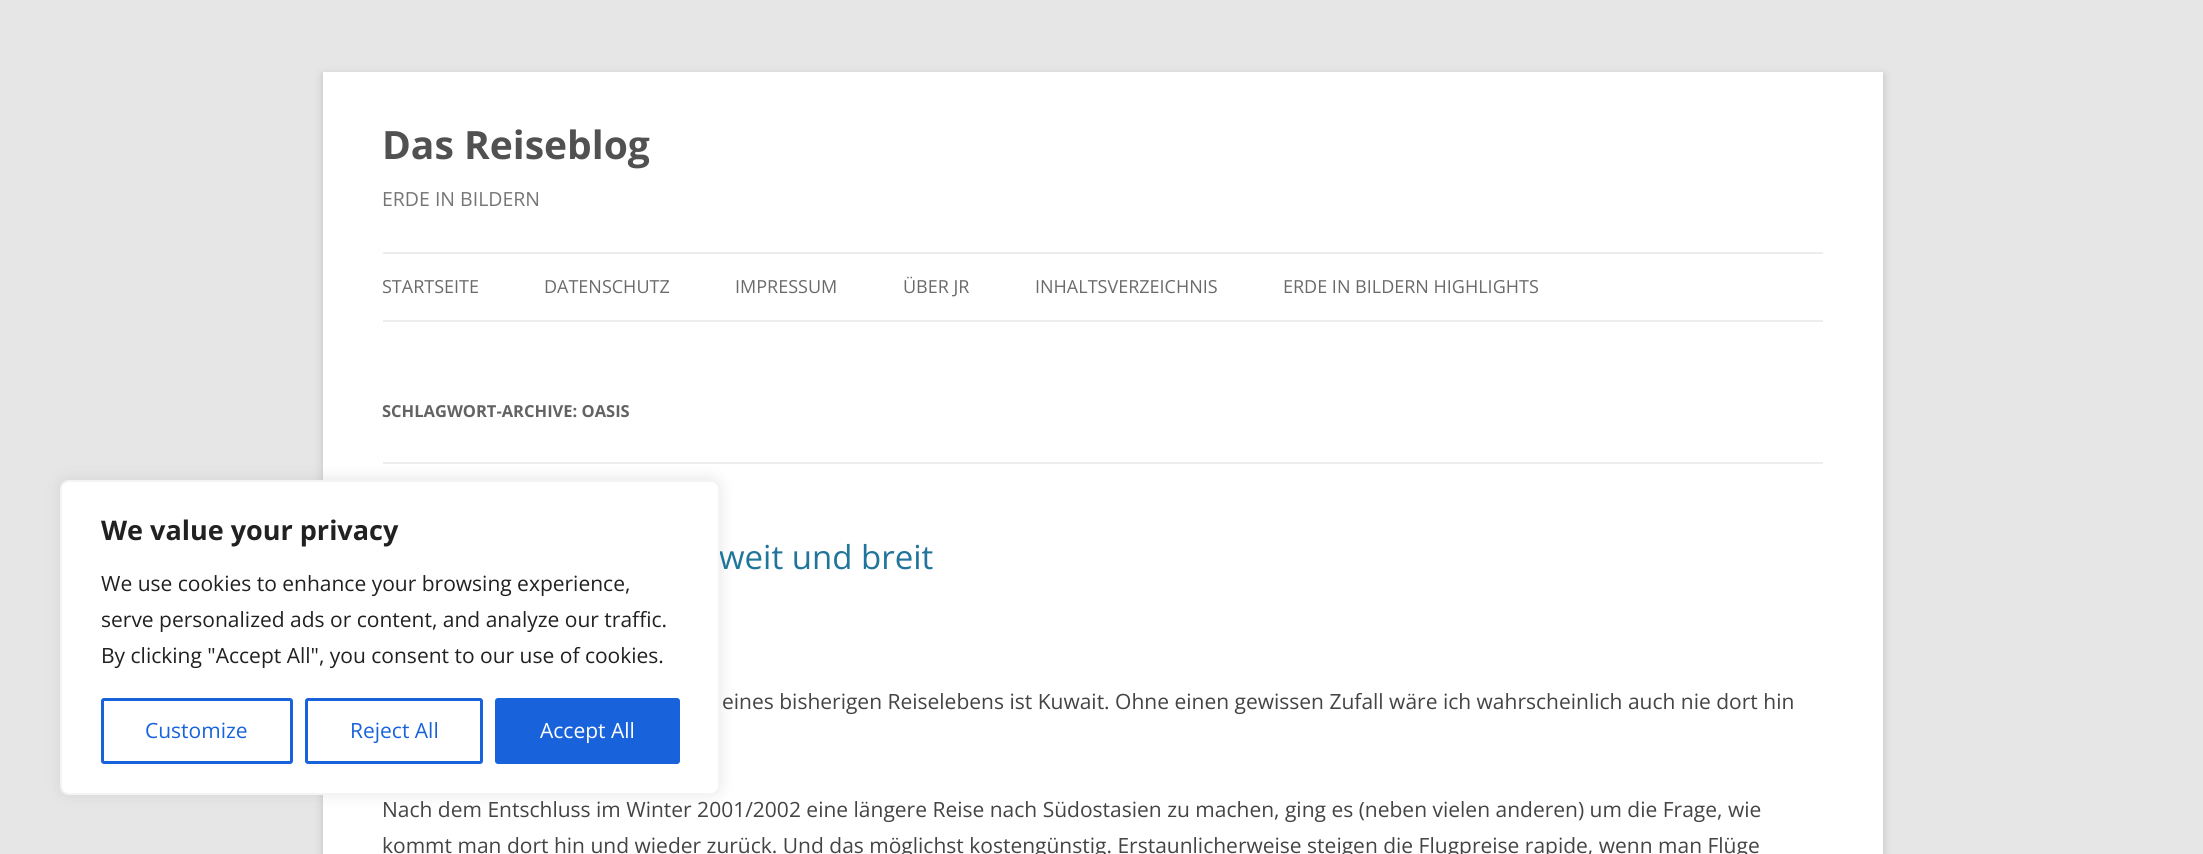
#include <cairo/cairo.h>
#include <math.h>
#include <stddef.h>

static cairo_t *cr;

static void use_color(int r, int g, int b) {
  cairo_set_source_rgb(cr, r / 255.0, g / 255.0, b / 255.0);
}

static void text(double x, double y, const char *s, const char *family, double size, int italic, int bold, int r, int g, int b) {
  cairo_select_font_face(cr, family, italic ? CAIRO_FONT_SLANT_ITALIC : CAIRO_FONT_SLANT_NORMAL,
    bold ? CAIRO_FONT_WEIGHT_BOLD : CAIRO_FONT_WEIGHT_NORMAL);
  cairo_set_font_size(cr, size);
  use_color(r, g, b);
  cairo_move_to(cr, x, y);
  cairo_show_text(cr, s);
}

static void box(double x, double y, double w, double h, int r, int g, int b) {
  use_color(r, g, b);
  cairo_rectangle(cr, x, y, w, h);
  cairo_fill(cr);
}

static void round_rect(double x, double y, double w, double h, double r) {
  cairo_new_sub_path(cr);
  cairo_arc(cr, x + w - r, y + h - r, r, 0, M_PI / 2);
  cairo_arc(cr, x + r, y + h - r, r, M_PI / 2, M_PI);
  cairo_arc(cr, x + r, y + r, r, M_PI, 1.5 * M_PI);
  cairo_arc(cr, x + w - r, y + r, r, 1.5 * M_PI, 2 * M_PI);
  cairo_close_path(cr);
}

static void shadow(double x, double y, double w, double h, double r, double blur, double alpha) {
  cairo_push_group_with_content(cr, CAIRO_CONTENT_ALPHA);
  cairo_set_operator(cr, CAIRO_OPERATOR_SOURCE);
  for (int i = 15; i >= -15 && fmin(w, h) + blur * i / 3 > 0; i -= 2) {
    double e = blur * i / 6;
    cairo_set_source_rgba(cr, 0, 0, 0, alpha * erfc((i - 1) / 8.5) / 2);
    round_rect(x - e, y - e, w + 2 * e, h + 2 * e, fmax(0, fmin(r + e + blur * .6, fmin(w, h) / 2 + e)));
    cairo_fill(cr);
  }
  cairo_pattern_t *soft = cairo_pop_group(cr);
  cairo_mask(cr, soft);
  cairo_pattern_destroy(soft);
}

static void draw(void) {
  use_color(230, 230, 230);
  cairo_paint(cr);
  use_color(100, 100, 100);
  shadow(323, 75, 1560, 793, 0, 4.5, 0.3);
  box(323, 72, 1560, 782, 255, 255, 255);
  box(383, 252, 1440, 2, 237, 237, 237);
  box(383, 320, 1440, 2, 237, 237, 237);
  box(383, 462, 1440, 2, 237, 237, 237);
  use_color(172, 171, 171);
  shadow(60, 479, 660, 315, 9, 7.5, 0.3);
  text(382, 159, "Das Reiseblog", "Open Sans", 39, 0, 1, 81, 81, 81);
  text(382, 206, "ERDE IN BILDERN", "Open Sans", 19.5, 0, 0, 117, 117, 117);
  text(382, 293, "STARTSEITE", "Open Sans", 18, 0, 0, 106, 106, 106);
  text(544, 293, "DATENSCHUTZ", "Open Sans", 18, 0, 0, 106, 106, 106);
  text(735, 293, "IMPRESSUM", "Open Sans", 18, 0, 0, 106, 106, 106);
  text(903, 293, "ÜBER JR", "Open Sans", 18, 0, 0, 106, 106, 106);
  text(1035, 293, "INHALTSVERZEICHNIS", "Open Sans", 18, 0, 0, 106, 106, 106);
  text(1283, 293, "ERDE IN BILDERN HIGHLIGHTS", "Open Sans", 18, 0, 0, 106, 106, 106);
  text(382, 417, "SCHLAGWORT-ARCHIVE: OASIS", "Open Sans", 16.5, 0, 1, 99, 99, 99);
  text(719, 569, "weit und breit", "Open Sans", 33, 0, 0, 33, 117, 155);
  text(722, 709, "eines bisherigen Reiselebens ist Kuwait. Ohne einen gewissen Zufall wäre ich wahrscheinlich auch nie dort hin", "Open Sans", 21, 0, 0, 68, 68, 68);
  text(382, 817, "Nach dem Entschluss im Winter 2001/2002 eine längere Reise nach Südostasien zu machen, ging es (neben vielen anderen) um die Frage, wie", "Open Sans", 21, 0, 0, 68, 68, 68);
  text(382, 853, "kommt man dort hin und wieder zurück. Und das möglichst kostengünstig. Erstaunlicherweise steigen die Flugpreise rapide, wenn man Flüge", "Open Sans", 21, 0, 0, 68, 68, 68);
  use_color(255, 255, 255);
  round_rect(61, 481, 658, 313, 8);
  cairo_fill_preserve(cr);
  use_color(244, 244, 244);
  cairo_stroke(cr);
  text(101, 540, "We value your privacy", "Open Sans", 27, 0, 1, 33, 33, 33);
  text(101, 591, "We use cookies to enhance your browsing experience,", "Open Sans", 21, 0, 0, 33, 33, 33);
  text(101, 627, "serve personalized ads or content, and analyze our traffic.", "Open Sans", 21, 0, 0, 33, 33, 33);
  text(101, 663, "By clicking \"Accept All\", you consent to our use of cookies.", "Open Sans", 21, 0, 0, 33, 33, 33);
  round_rect(102.5, 699.5, 189, 63, 1.5);
  use_color(24, 99, 220);
  cairo_set_line_width(cr, 3);
  cairo_stroke(cr);
  text(145, 738, "Customize", "Open Sans", 21, 0, 0, 24, 99, 220);
  round_rect(306.5, 699.5, 175, 63, 1.5);
  cairo_stroke(cr);
  text(350, 738, "Reject All", "Open Sans", 21, 0, 0, 24, 99, 220);
  round_rect(496.5, 699.5, 182, 63, 1.5);
  cairo_fill_preserve(cr);
  cairo_stroke(cr);
  text(540, 738, "Accept All", "Open Sans", 21, 0, 0, 255, 255, 255);
}

int main(void) {
  cairo_surface_t *surface = cairo_image_surface_create(CAIRO_FORMAT_RGB24, 2203, 854);
  cr = cairo_create(surface);
  cairo_font_options_t *options = cairo_font_options_create();
  cairo_font_options_set_hint_metrics(options, CAIRO_HINT_METRICS_OFF);
  cairo_font_options_set_hint_style(options, CAIRO_HINT_STYLE_NONE);
  cairo_set_font_options(cr, options);
  cairo_set_miter_limit(cr, 4);
  draw();
  cairo_surface_write_to_png(surface, "out.png");
  cairo_font_options_destroy(options);
  cairo_destroy(cr);
  cairo_surface_destroy(surface);
  return 0;
}
